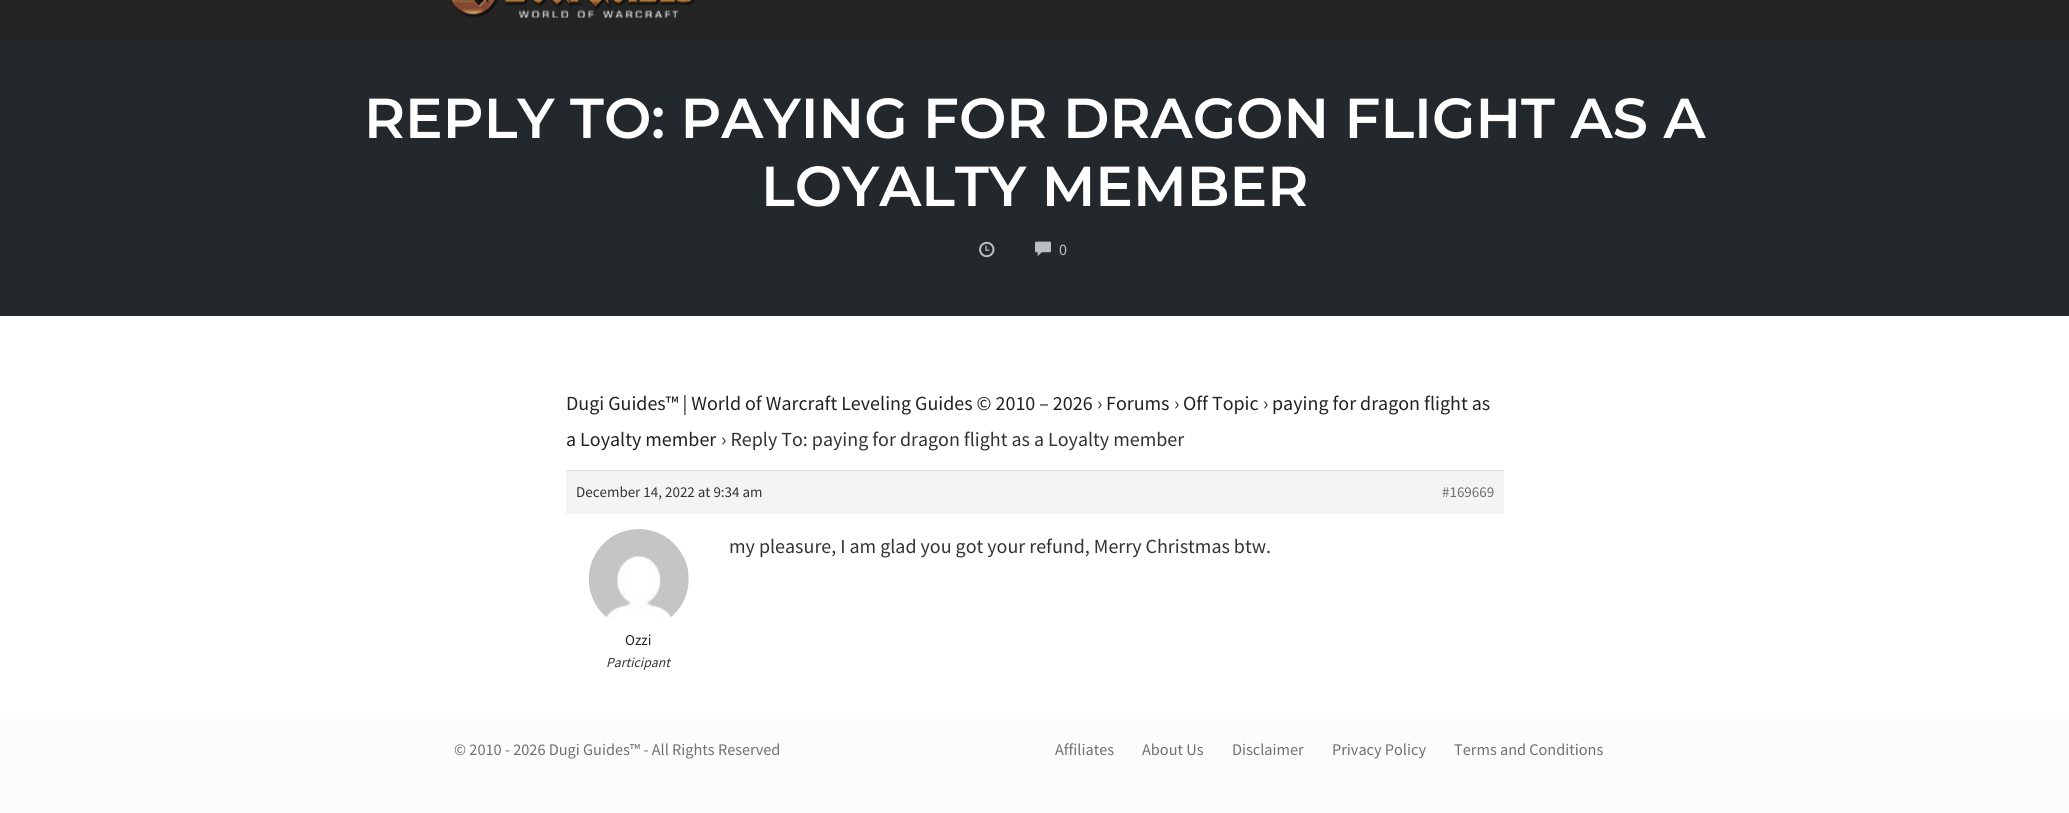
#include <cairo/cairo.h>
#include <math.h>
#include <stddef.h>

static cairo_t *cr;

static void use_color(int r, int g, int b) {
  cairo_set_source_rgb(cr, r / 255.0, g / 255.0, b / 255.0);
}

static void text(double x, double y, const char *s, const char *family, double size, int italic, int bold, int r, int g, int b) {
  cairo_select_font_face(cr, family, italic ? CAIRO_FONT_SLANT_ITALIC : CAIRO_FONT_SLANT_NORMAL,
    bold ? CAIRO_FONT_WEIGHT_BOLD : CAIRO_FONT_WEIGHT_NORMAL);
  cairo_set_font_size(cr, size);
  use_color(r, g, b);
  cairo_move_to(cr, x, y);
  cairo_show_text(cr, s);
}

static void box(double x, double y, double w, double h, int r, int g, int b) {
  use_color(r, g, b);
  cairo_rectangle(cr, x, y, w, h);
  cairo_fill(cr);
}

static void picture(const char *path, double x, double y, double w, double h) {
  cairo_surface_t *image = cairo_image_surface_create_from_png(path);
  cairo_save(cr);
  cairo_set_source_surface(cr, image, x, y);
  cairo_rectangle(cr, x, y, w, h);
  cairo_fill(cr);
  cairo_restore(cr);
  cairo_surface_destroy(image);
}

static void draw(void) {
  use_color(255, 255, 255);
  cairo_paint(cr);
  box(0, 0, 2069, 41, 36, 36, 36);
  picture("img_01.png", 450, 0, 245, 18);
  box(0, 41, 2069, 275, 35, 40, 45);
  picture("img_02.png", 979, 241, 16, 17);
  picture("img_03.png", 1035, 241, 16, 16);
  box(566, 471, 938, 43, 244, 244, 244);
  box(566, 470, 938, 1, 221, 221, 221);
  picture("img_04.png", 589, 529, 100, 89);
  box(0, 714, 2069, 99, 252, 252, 252);
  text(364, 138, "REPLY TO: PAYING FOR DRAGON FLIGHT AS A", "Montserrat SemiBold", 56.25, 0, 0, 255, 255, 255);
  text(761, 206, "LOYALTY MEMBER", "Montserrat SemiBold", 56.25, 0, 0, 255, 255, 255);
  text(1059, 255, "0", "Source Sans Pro", 16, 0, 0, 189, 191, 192);
  text(566, 410, "Dugi Guides™ | World of Warcraft Leveling Guides © 2010 – 2026", "Source Sans Pro", 20, 0, 0, 34, 34, 34);
  text(1097, 410, "›", "Source Sans Pro", 20, 0, 0, 51, 51, 51);
  text(1106, 410, "Forums", "Source Sans Pro", 20, 0, 0, 34, 34, 34);
  text(1174, 410, "›", "Source Sans Pro", 20, 0, 0, 51, 51, 51);
  text(1183, 410, "Off Topic", "Source Sans Pro", 20, 0, 0, 34, 34, 34);
  text(1263, 410, "›", "Source Sans Pro", 20, 0, 0, 51, 51, 51);
  text(1272, 410, "paying for dragon flight as", "Source Sans Pro", 20, 0, 0, 34, 34, 34);
  text(566, 446, "a Loyalty member", "Source Sans Pro", 20, 0, 0, 34, 34, 34);
  text(721, 446, "› Reply To: paying for dragon flight as a Loyalty member", "Source Sans Pro", 20, 0, 0, 51, 51, 51);
  text(576, 497, "December 14, 2022 at 9:34 am", "Source Sans Pro", 15, 0, 0, 51, 51, 51);
  text(1442, 497, "#169669", "Source Sans Pro", 15, 0, 0, 112, 112, 112);
  text(729, 553, "my pleasure, I am glad you got your refund, Merry Christmas btw.", "Source Sans Pro", 20, 0, 0, 51, 51, 51);
  text(625, 645, "Ozzi", "Source Sans Pro", 15, 0, 0, 34, 34, 34);
  text(606, 667, "Participant", "Source Sans Pro", 13.75, 1, 0, 51, 51, 51);
  text(454, 755, "© 2010 - 2026 Dugi Guides™ - All Rights Reserved", "Source Sans Pro", 16.25, 0, 0, 112, 112, 112);
  text(1055, 755, "Affiliates", "Source Sans Pro", 16.25, 0, 0, 112, 112, 112);
  text(1142, 755, "About Us", "Source Sans Pro", 16.25, 0, 0, 112, 112, 112);
  text(1232, 755, "Disclaimer", "Source Sans Pro", 16.25, 0, 0, 112, 112, 112);
  text(1332, 755, "Privacy Policy", "Source Sans Pro", 16.25, 0, 0, 112, 112, 112);
  text(1454, 755, "Terms and Conditions", "Source Sans Pro", 16.25, 0, 0, 112, 112, 112);
}

int main(void) {
  cairo_surface_t *surface = cairo_image_surface_create(CAIRO_FORMAT_RGB24, 2069, 813);
  cr = cairo_create(surface);
  cairo_font_options_t *options = cairo_font_options_create();
  cairo_font_options_set_hint_metrics(options, CAIRO_HINT_METRICS_OFF);
  cairo_font_options_set_hint_style(options, CAIRO_HINT_STYLE_NONE);
  cairo_set_font_options(cr, options);
  cairo_set_miter_limit(cr, 4);
  draw();
  cairo_surface_write_to_png(surface, "out.png");
  cairo_font_options_destroy(options);
  cairo_destroy(cr);
  cairo_surface_destroy(surface);
  return 0;
}
